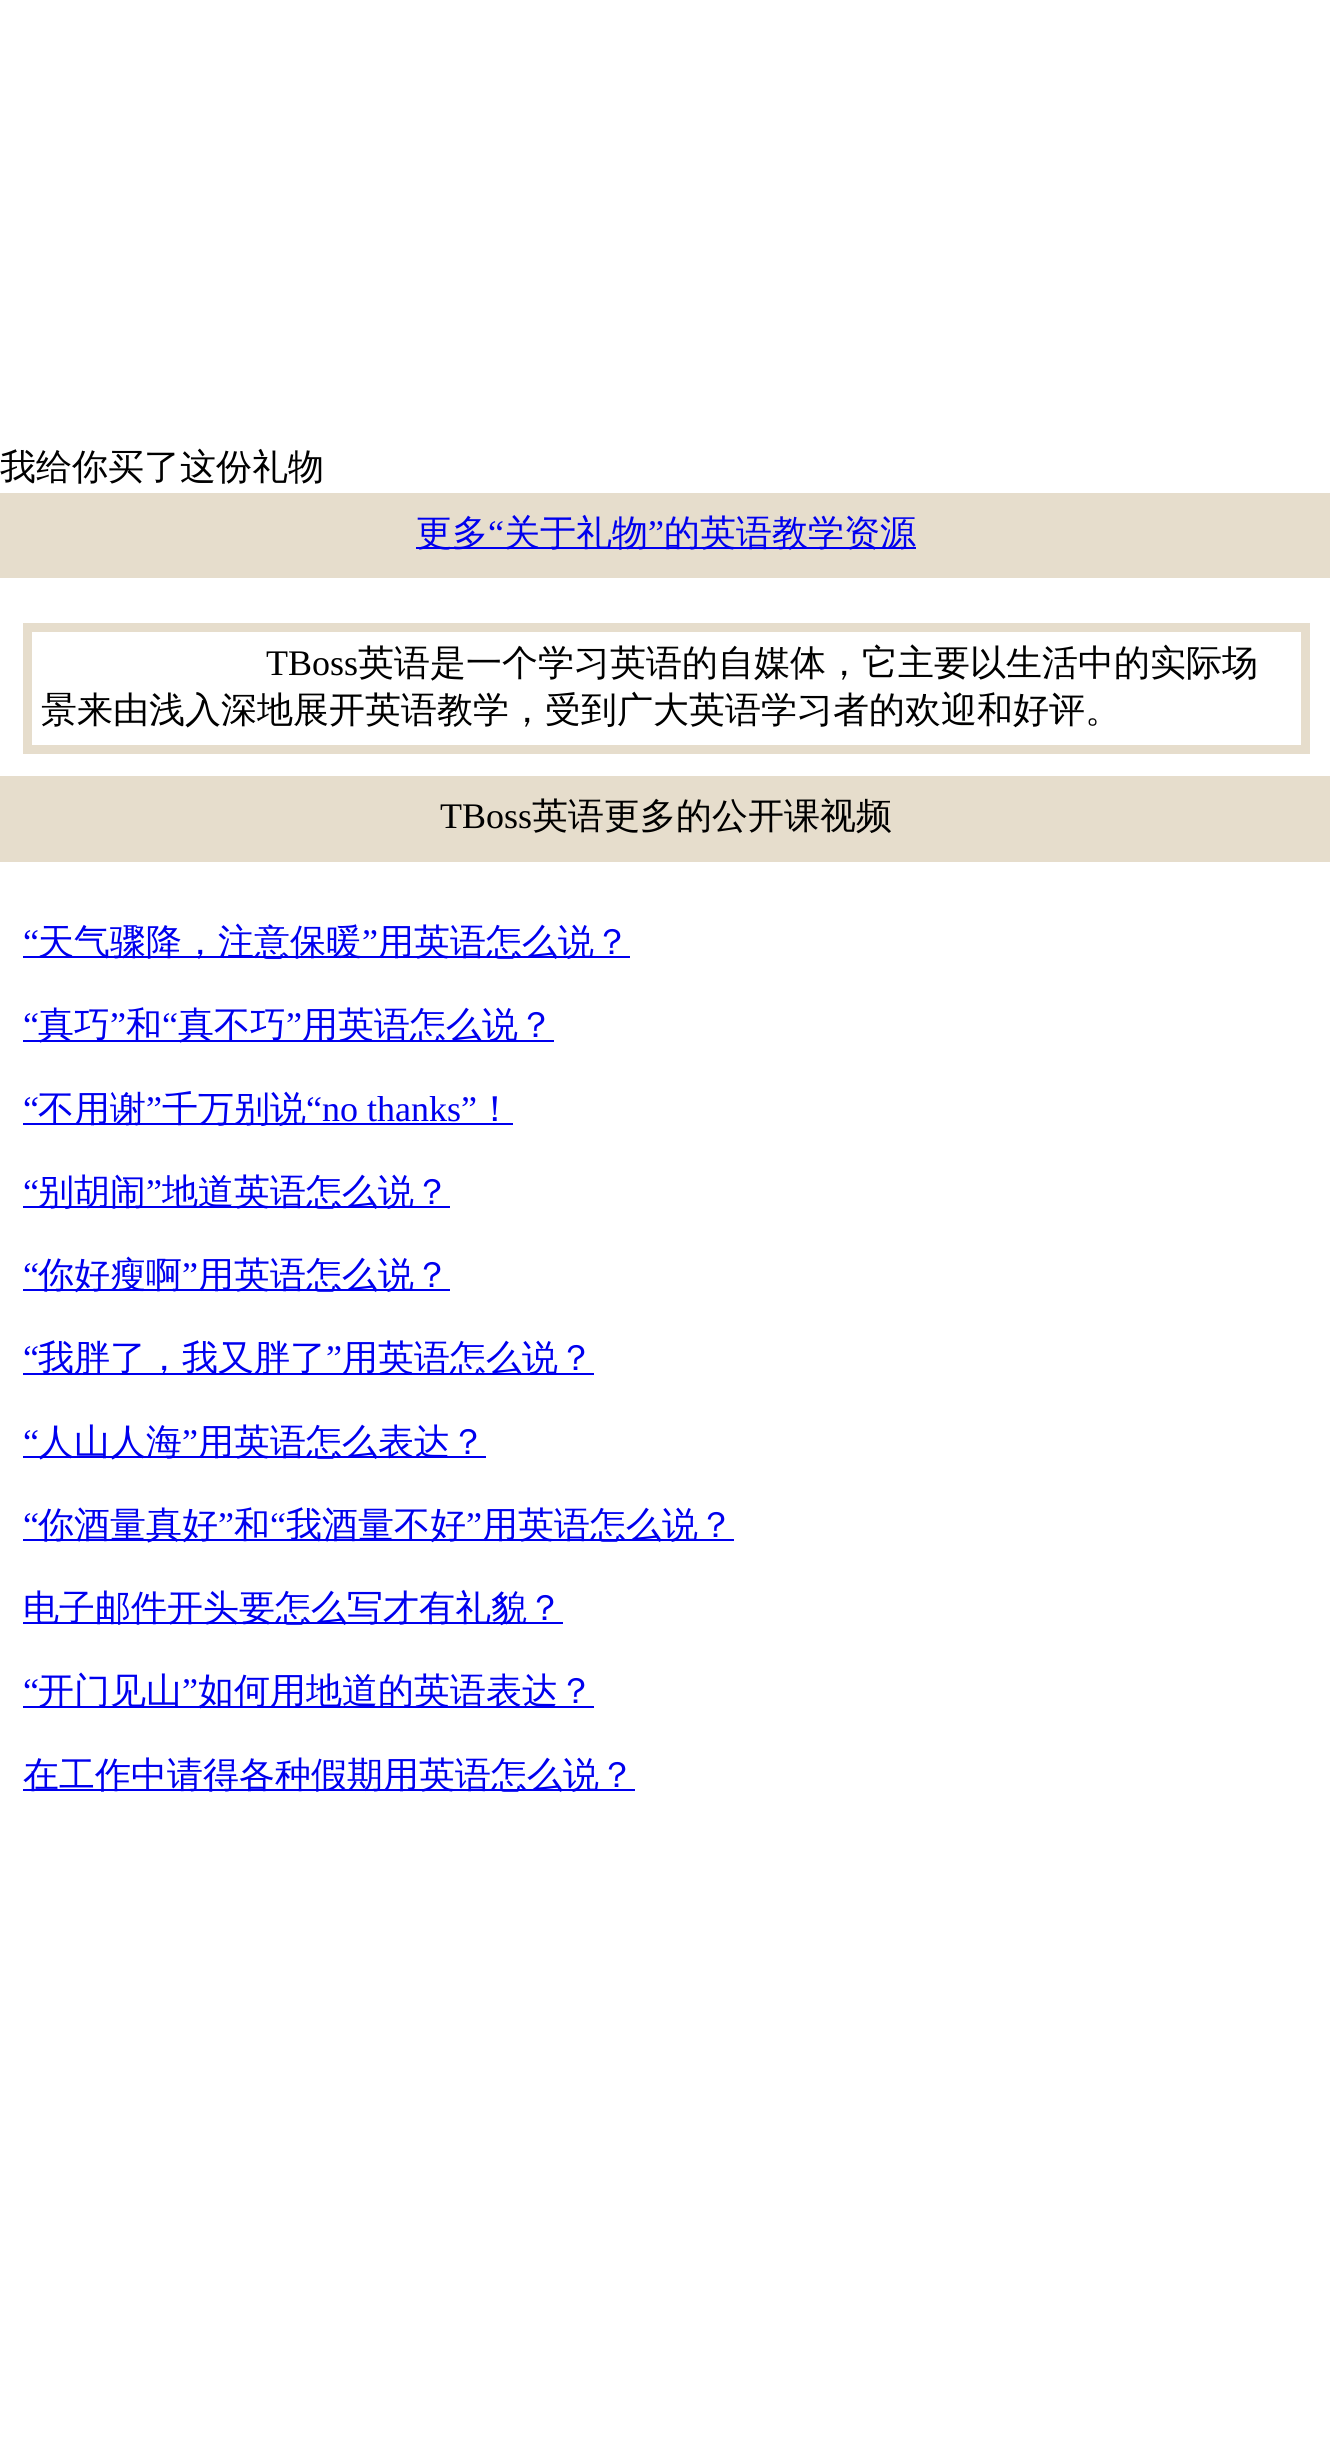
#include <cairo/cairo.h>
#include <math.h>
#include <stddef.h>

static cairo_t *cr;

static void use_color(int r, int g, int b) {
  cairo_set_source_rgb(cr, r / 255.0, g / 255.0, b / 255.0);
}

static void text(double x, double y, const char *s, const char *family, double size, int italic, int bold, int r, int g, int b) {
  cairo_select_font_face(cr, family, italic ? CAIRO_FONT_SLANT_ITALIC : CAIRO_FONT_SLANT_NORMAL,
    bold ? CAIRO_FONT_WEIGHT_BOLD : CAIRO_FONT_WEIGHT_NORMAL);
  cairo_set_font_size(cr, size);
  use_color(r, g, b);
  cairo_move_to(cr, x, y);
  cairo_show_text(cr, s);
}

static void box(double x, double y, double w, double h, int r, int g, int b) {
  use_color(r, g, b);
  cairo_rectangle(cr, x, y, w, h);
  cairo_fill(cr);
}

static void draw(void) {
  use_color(255, 255, 255);
  cairo_paint(cr);
  box(0, 493, 1330, 85, 230, 221, 204);
  box(416, 547, 500, 2, 0, 0, 238);
  cairo_rectangle(cr, 27.5, 627.5, 1278, 122);
  use_color(230, 221, 204);
  cairo_set_line_width(cr, 9);
  cairo_stroke(cr);
  box(0, 776, 1330, 86, 230, 221, 204);
  box(23, 956, 607, 2, 0, 0, 238);
  box(23, 1040, 531, 2, 0, 0, 238);
  box(23, 1123, 490, 2, 0, 0, 238);
  box(23, 1206, 427, 2, 0, 0, 238);
  box(23, 1289, 427, 2, 0, 0, 238);
  box(23, 1373, 571, 2, 0, 0, 238);
  box(23, 1456, 463, 2, 0, 0, 238);
  box(23, 1539, 711, 2, 0, 0, 238);
  box(23, 1622, 540, 2, 0, 0, 238);
  box(23, 1706, 571, 2, 0, 0, 238);
  box(23, 1789, 612, 2, 0, 0, 238);
  text(0, 479, "我给你买了这份礼物", "WenQuanYi Zen Hei Medium", 36, 0, 0, 0, 0, 0);
  text(416, 545, "更多", "WenQuanYi Zen Hei Medium", 36, 0, 0, 0, 0, 238);
  text(488, 545, "“", "Liberation Serif", 36, 0, 0, 0, 0, 238);
  text(504, 545, "关于礼物", "WenQuanYi Zen Hei Medium", 36, 0, 0, 0, 0, 238);
  text(648, 545, "”", "Liberation Serif", 36, 0, 0, 0, 0, 238);
  text(664, 545, "的英语教学资源", "WenQuanYi Zen Hei Medium", 36, 0, 0, 0, 0, 238);
  text(266, 675, "TBoss", "Liberation Serif", 36, 0, 0, 0, 0, 0);
  text(358, 675, "英语是一个学习英语的自媒体，它主要以生活中的实际场", "WenQuanYi Zen Hei Medium", 36, 0, 0, 0, 0, 0);
  text(41, 722, "景来由浅入深地展开英语教学，受到广大英语学习者的欢迎和好评。", "WenQuanYi Zen Hei Medium", 36, 0, 0, 0, 0, 0);
  text(440, 828, "TBoss", "Liberation Serif", 36, 0, 0, 0, 0, 0);
  text(532, 828, "英语更多的公开课视频", "WenQuanYi Zen Hei Medium", 36, 0, 0, 0, 0, 0);
  text(23, 954, "“", "Liberation Serif", 36, 0, 0, 0, 0, 238);
  text(38, 954, "天气骤降，注意保暖", "WenQuanYi Zen Hei Medium", 36, 0, 0, 0, 0, 238);
  text(362, 954, "”", "Liberation Serif", 36, 0, 0, 0, 0, 238);
  text(378, 954, "用英语怎么说？", "WenQuanYi Zen Hei Medium", 36, 0, 0, 0, 0, 238);
  text(23, 1037, "“", "Liberation Serif", 36, 0, 0, 0, 0, 238);
  text(38, 1037, "真巧", "WenQuanYi Zen Hei Medium", 36, 0, 0, 0, 0, 238);
  text(110, 1037, "”", "Liberation Serif", 36, 0, 0, 0, 0, 238);
  text(126, 1037, "和", "WenQuanYi Zen Hei Medium", 36, 0, 0, 0, 0, 238);
  text(162, 1037, "“", "Liberation Serif", 36, 0, 0, 0, 0, 238);
  text(178, 1037, "真不巧", "WenQuanYi Zen Hei Medium", 36, 0, 0, 0, 0, 238);
  text(286, 1037, "”", "Liberation Serif", 36, 0, 0, 0, 0, 238);
  text(302, 1037, "用英语怎么说？", "WenQuanYi Zen Hei Medium", 36, 0, 0, 0, 0, 238);
  text(23, 1121, "“", "Liberation Serif", 36, 0, 0, 0, 0, 238);
  text(38, 1121, "不用谢", "WenQuanYi Zen Hei Medium", 36, 0, 0, 0, 0, 238);
  text(146, 1121, "”", "Liberation Serif", 36, 0, 0, 0, 0, 238);
  text(162, 1121, "千万别说", "WenQuanYi Zen Hei Medium", 36, 0, 0, 0, 0, 238);
  text(306, 1121, "“no thanks”", "Liberation Serif", 36, 0, 0, 0, 0, 238);
  text(477, 1121, "！", "WenQuanYi Zen Hei Medium", 36, 0, 0, 0, 0, 238);
  text(23, 1204, "“", "Liberation Serif", 36, 0, 0, 0, 0, 238);
  text(38, 1204, "别胡闹", "WenQuanYi Zen Hei Medium", 36, 0, 0, 0, 0, 238);
  text(146, 1204, "”", "Liberation Serif", 36, 0, 0, 0, 0, 238);
  text(162, 1204, "地道英语怎么说？", "WenQuanYi Zen Hei Medium", 36, 0, 0, 0, 0, 238);
  text(23, 1287, "“", "Liberation Serif", 36, 0, 0, 0, 0, 238);
  text(38, 1287, "你好瘦啊", "WenQuanYi Zen Hei Medium", 36, 0, 0, 0, 0, 238);
  text(182, 1287, "”", "Liberation Serif", 36, 0, 0, 0, 0, 238);
  text(198, 1287, "用英语怎么说？", "WenQuanYi Zen Hei Medium", 36, 0, 0, 0, 0, 238);
  text(23, 1370, "“", "Liberation Serif", 36, 0, 0, 0, 0, 238);
  text(38, 1370, "我胖了，我又胖了", "WenQuanYi Zen Hei Medium", 36, 0, 0, 0, 0, 238);
  text(326, 1370, "”", "Liberation Serif", 36, 0, 0, 0, 0, 238);
  text(342, 1370, "用英语怎么说？", "WenQuanYi Zen Hei Medium", 36, 0, 0, 0, 0, 238);
  text(23, 1454, "“", "Liberation Serif", 36, 0, 0, 0, 0, 238);
  text(38, 1454, "人山人海", "WenQuanYi Zen Hei Medium", 36, 0, 0, 0, 0, 238);
  text(182, 1454, "”", "Liberation Serif", 36, 0, 0, 0, 0, 238);
  text(198, 1454, "用英语怎么表达？", "WenQuanYi Zen Hei Medium", 36, 0, 0, 0, 0, 238);
  text(23, 1537, "“", "Liberation Serif", 36, 0, 0, 0, 0, 238);
  text(38, 1537, "你酒量真好", "WenQuanYi Zen Hei Medium", 36, 0, 0, 0, 0, 238);
  text(218, 1537, "”", "Liberation Serif", 36, 0, 0, 0, 0, 238);
  text(234, 1537, "和", "WenQuanYi Zen Hei Medium", 36, 0, 0, 0, 0, 238);
  text(270, 1537, "“", "Liberation Serif", 36, 0, 0, 0, 0, 238);
  text(286, 1537, "我酒量不好", "WenQuanYi Zen Hei Medium", 36, 0, 0, 0, 0, 238);
  text(466, 1537, "”", "Liberation Serif", 36, 0, 0, 0, 0, 238);
  text(482, 1537, "用英语怎么说？", "WenQuanYi Zen Hei Medium", 36, 0, 0, 0, 0, 238);
  text(23, 1620, "电子邮件开头要怎么写才有礼貌？", "WenQuanYi Zen Hei Medium", 36, 0, 0, 0, 0, 238);
  text(23, 1703, "“", "Liberation Serif", 36, 0, 0, 0, 0, 238);
  text(38, 1703, "开门见山", "WenQuanYi Zen Hei Medium", 36, 0, 0, 0, 0, 238);
  text(182, 1703, "”", "Liberation Serif", 36, 0, 0, 0, 0, 238);
  text(198, 1703, "如何用地道的英语表达？", "WenQuanYi Zen Hei Medium", 36, 0, 0, 0, 0, 238);
  text(23, 1787, "在工作中请得各种假期用英语怎么说？", "WenQuanYi Zen Hei Medium", 36, 0, 0, 0, 0, 238);
}

int main(void) {
  cairo_surface_t *surface = cairo_image_surface_create(CAIRO_FORMAT_RGB24, 1330, 2464);
  cr = cairo_create(surface);
  cairo_font_options_t *options = cairo_font_options_create();
  cairo_font_options_set_hint_metrics(options, CAIRO_HINT_METRICS_OFF);
  cairo_font_options_set_hint_style(options, CAIRO_HINT_STYLE_NONE);
  cairo_set_font_options(cr, options);
  cairo_set_miter_limit(cr, 4);
  draw();
  cairo_surface_write_to_png(surface, "out.png");
  cairo_font_options_destroy(options);
  cairo_destroy(cr);
  cairo_surface_destroy(surface);
  return 0;
}
